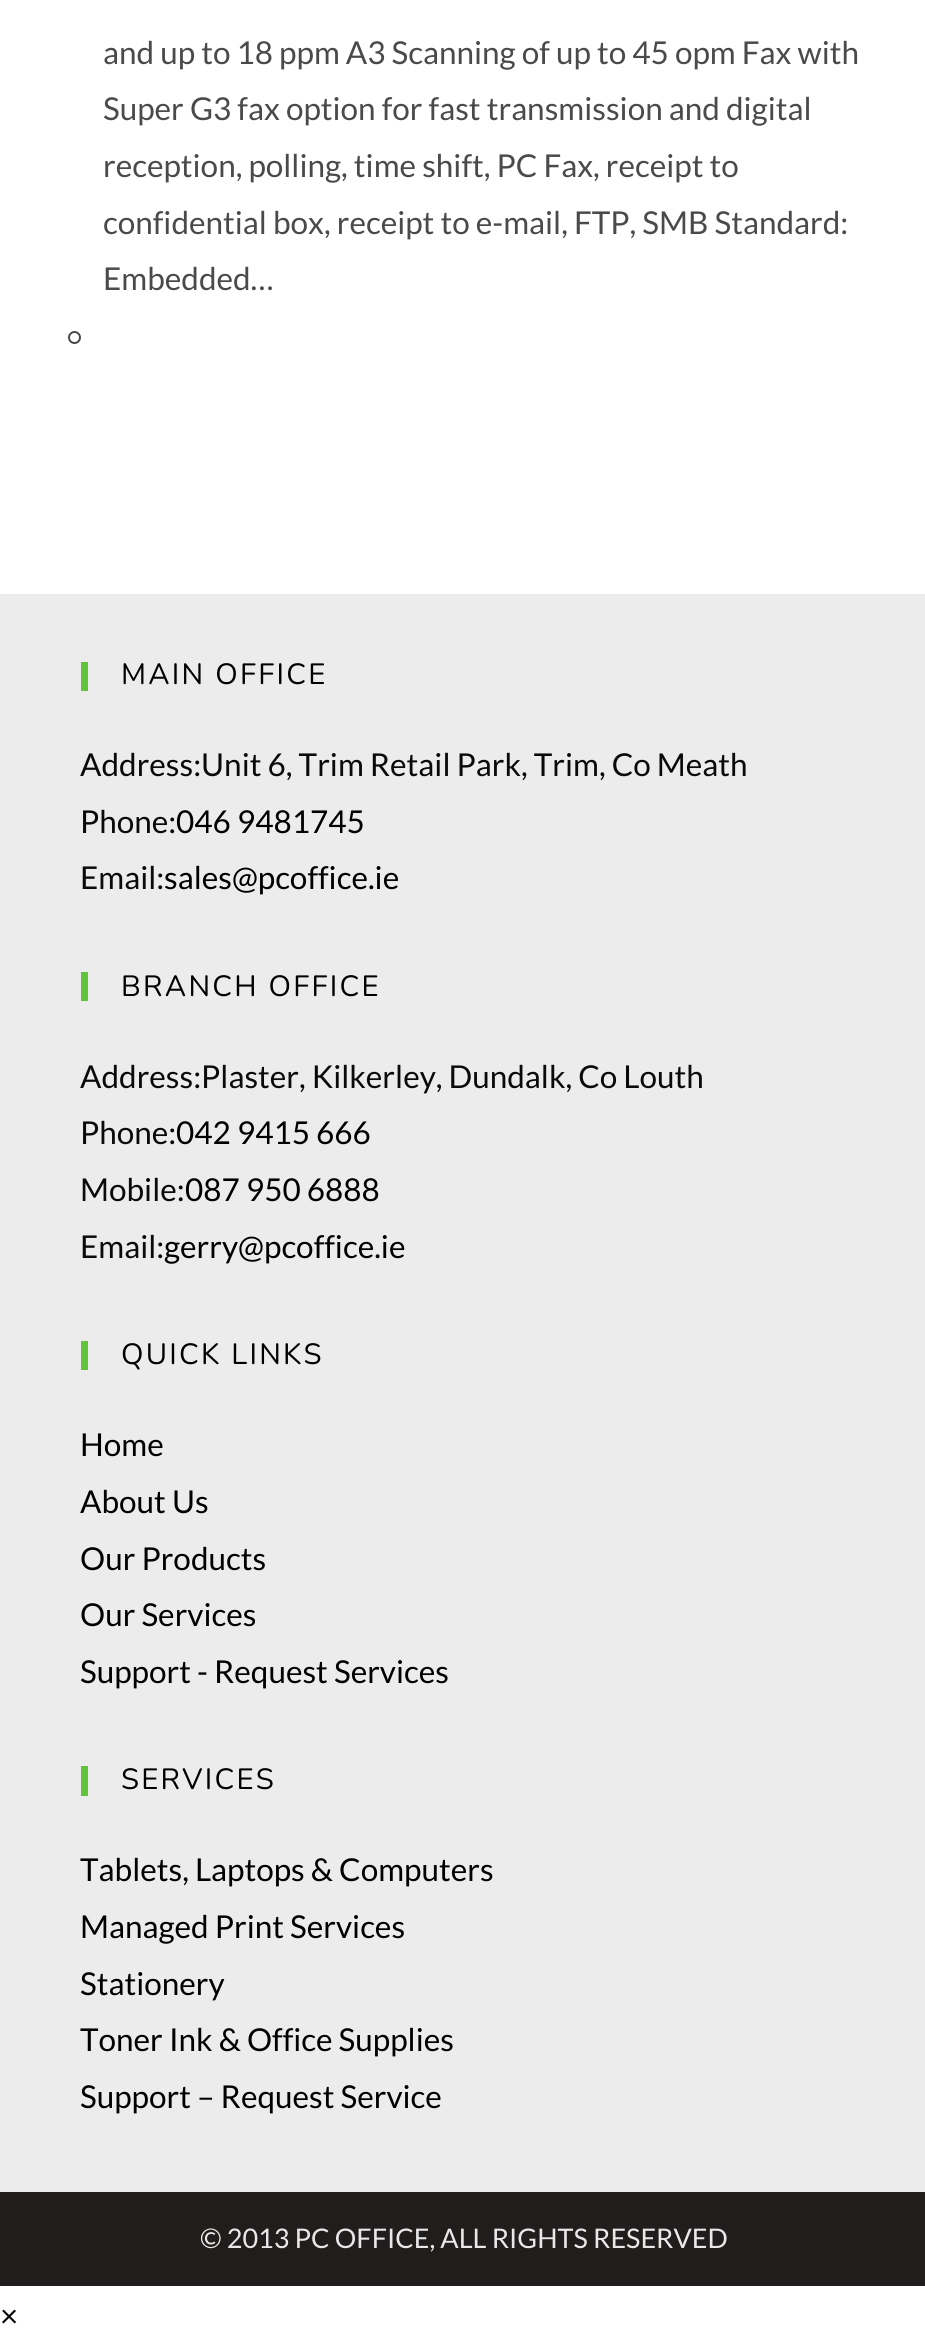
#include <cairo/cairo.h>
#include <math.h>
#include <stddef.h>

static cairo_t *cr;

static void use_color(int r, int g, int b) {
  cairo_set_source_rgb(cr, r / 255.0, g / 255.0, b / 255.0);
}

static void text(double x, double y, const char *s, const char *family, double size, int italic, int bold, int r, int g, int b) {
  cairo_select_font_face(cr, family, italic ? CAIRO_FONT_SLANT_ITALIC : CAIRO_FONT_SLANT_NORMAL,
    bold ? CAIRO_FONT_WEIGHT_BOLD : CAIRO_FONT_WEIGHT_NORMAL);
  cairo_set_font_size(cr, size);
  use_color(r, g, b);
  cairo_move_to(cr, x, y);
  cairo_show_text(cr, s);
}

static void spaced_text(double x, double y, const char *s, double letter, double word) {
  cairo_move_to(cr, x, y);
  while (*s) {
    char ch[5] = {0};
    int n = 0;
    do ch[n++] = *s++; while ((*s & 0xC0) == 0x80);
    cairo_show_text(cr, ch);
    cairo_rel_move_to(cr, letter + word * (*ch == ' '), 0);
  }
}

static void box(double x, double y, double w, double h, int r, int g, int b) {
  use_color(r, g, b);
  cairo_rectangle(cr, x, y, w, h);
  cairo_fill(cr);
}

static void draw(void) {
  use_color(255, 255, 255);
  cairo_paint(cr);
  cairo_arc(cr, 74.5, 337.5, 5.5, 0, 2 * M_PI);
  use_color(74, 74, 74);
  cairo_stroke(cr);
  box(0, 594, 925, 1598, 236, 236, 236);
  box(81, 662, 7, 29, 96, 196, 58);
  box(81, 972, 7, 29, 96, 196, 58);
  box(81, 1341, 7, 29, 96, 196, 58);
  box(81, 1766, 7, 30, 96, 196, 58);
  box(0, 2192, 925, 94, 34, 29, 29);
  text(103, 64, "and up to 18 ppm A3 Scanning of up to 45 opm Fax with", "Lato", 31.5, 0, 0, 74, 74, 74);
  text(103, 120, "Super G3 fax option for fast transmission and digital", "Lato", 31.5, 0, 0, 74, 74, 74);
  text(103, 177, "reception, polling, time shift, PC Fax, receipt to", "Lato", 31.5, 0, 0, 74, 74, 74);
  text(103, 234, "confidential box, receipt to e-mail, FTP, SMB Standard:", "Lato", 31.5, 0, 0, 74, 74, 74);
  text(103, 290, "Embedded…", "Lato", 31.5, 0, 0, 74, 74, 74);
  cairo_select_font_face(cr, "Nunito", CAIRO_FONT_SLANT_NORMAL, CAIRO_FONT_WEIGHT_NORMAL);
  cairo_set_font_size(cr, 29.25);
  use_color(0, 0, 0);
  spaced_text(121, 684, "MAIN OFFICE", 2.25, 0);
  text(80, 776, "Address:Unit 6, Trim Retail Park, Trim, Co Meath", "Lato", 31.5, 0, 0, 10, 10, 10);
  text(80, 833, "Phone:", "Lato", 31.5, 0, 0, 10, 10, 10);
  text(176, 833, "046 9481745", "Lato", 31.5, 0, 0, 0, 0, 0);
  text(80, 889, "Email:", "Lato", 31.5, 0, 0, 10, 10, 10);
  text(164, 889, "sales@pcoffice.ie", "Lato", 31.5, 0, 0, 0, 0, 0);
  cairo_select_font_face(cr, "Nunito", CAIRO_FONT_SLANT_NORMAL, CAIRO_FONT_WEIGHT_NORMAL);
  cairo_set_font_size(cr, 29.25);
  spaced_text(121, 996, "BRANCH OFFICE", 2.25, 0);
  text(80, 1088, "Address:Plaster, Kilkerley, Dundalk, Co Louth", "Lato", 31.5, 0, 0, 10, 10, 10);
  text(80, 1144, "Phone:", "Lato", 31.5, 0, 0, 10, 10, 10);
  text(176, 1144, "042 9415 666", "Lato", 31.5, 0, 0, 0, 0, 0);
  text(80, 1201, "Mobile:", "Lato", 31.5, 0, 0, 10, 10, 10);
  text(185, 1201, "087 950 6888", "Lato", 31.5, 0, 0, 0, 0, 0);
  text(80, 1258, "Email:", "Lato", 31.5, 0, 0, 10, 10, 10);
  text(164, 1258, "gerry@pcoffice.ie", "Lato", 31.5, 0, 0, 0, 0, 0);
  cairo_select_font_face(cr, "Nunito", CAIRO_FONT_SLANT_NORMAL, CAIRO_FONT_WEIGHT_NORMAL);
  cairo_set_font_size(cr, 29.25);
  spaced_text(121, 1364, "QUICK LINKS", 2.25, 0);
  text(80, 1456, "Home", "Lato", 31.5, 0, 0, 0, 0, 0);
  text(80, 1513, "About Us", "Lato", 31.5, 0, 0, 0, 0, 0);
  text(80, 1570, "Our Products", "Lato", 31.5, 0, 0, 0, 0, 0);
  text(80, 1626, "Our Services", "Lato", 31.5, 0, 0, 0, 0, 0);
  text(80, 1683, "Support - Request Services", "Lato", 31.5, 0, 0, 0, 0, 0);
  cairo_select_font_face(cr, "Nunito", CAIRO_FONT_SLANT_NORMAL, CAIRO_FONT_WEIGHT_NORMAL);
  cairo_set_font_size(cr, 29.25);
  spaced_text(121, 1789, "SERVICES", 2.25, 0);
  text(80, 1881, "Tablets, Laptops & Computers", "Lato", 31.5, 0, 0, 0, 0, 0);
  text(80, 1938, "Managed Print Services", "Lato", 31.5, 0, 0, 0, 0, 0);
  text(80, 1995, "Stationery", "Lato", 31.5, 0, 0, 0, 0, 0);
  text(80, 2051, "Toner Ink & Office Supplies", "Lato", 31.5, 0, 0, 0, 0, 0);
  text(80, 2108, "Support – Request Service", "Lato", 31.5, 0, 0, 0, 0, 0);
  text(200, 2248, "© 2013 PC OFFICE, ALL RIGHTS RESERVED", "Lato", 27, 0, 0, 232, 232, 232);
  text(0, 2327, "×", "Lato", 31.5, 0, 0, 10, 10, 10);
}

int main(void) {
  cairo_surface_t *surface = cairo_image_surface_create(CAIRO_FORMAT_RGB24, 925, 2342);
  cr = cairo_create(surface);
  cairo_font_options_t *options = cairo_font_options_create();
  cairo_font_options_set_hint_metrics(options, CAIRO_HINT_METRICS_OFF);
  cairo_font_options_set_hint_style(options, CAIRO_HINT_STYLE_NONE);
  cairo_set_font_options(cr, options);
  cairo_set_miter_limit(cr, 4);
  draw();
  cairo_surface_write_to_png(surface, "out.png");
  cairo_font_options_destroy(options);
  cairo_destroy(cr);
  cairo_surface_destroy(surface);
  return 0;
}
